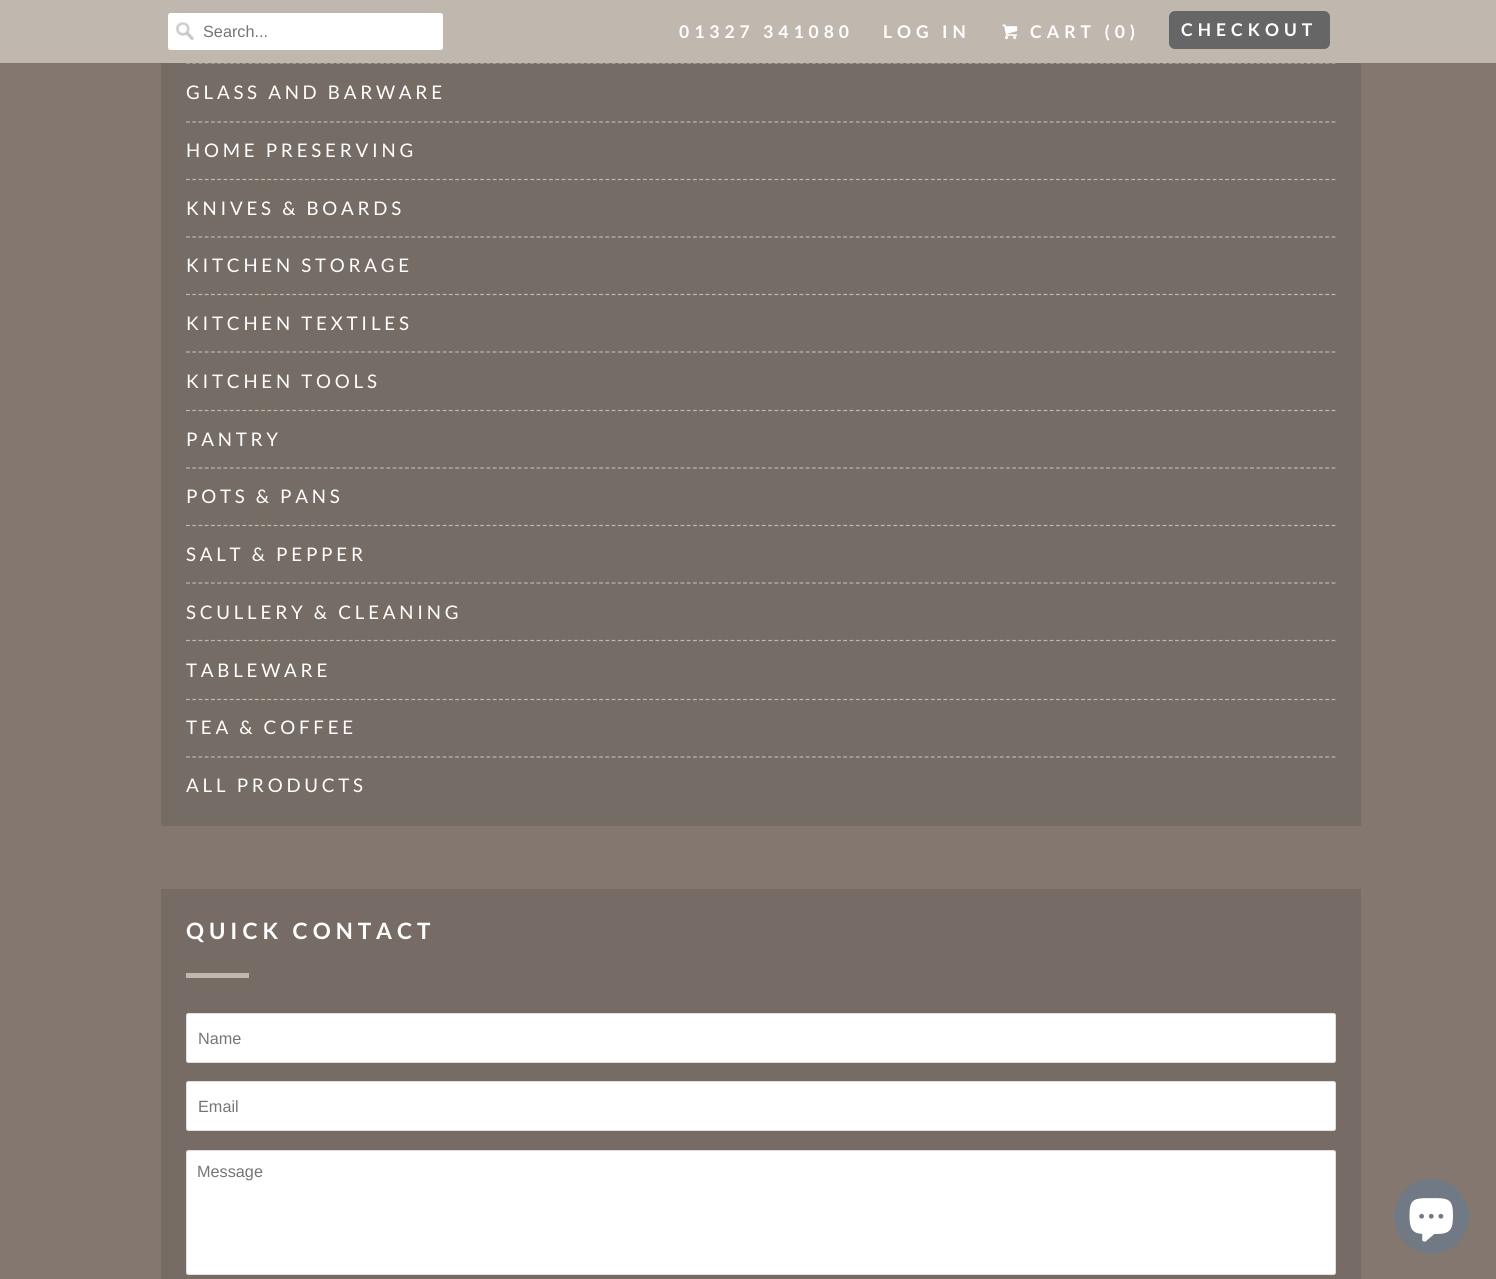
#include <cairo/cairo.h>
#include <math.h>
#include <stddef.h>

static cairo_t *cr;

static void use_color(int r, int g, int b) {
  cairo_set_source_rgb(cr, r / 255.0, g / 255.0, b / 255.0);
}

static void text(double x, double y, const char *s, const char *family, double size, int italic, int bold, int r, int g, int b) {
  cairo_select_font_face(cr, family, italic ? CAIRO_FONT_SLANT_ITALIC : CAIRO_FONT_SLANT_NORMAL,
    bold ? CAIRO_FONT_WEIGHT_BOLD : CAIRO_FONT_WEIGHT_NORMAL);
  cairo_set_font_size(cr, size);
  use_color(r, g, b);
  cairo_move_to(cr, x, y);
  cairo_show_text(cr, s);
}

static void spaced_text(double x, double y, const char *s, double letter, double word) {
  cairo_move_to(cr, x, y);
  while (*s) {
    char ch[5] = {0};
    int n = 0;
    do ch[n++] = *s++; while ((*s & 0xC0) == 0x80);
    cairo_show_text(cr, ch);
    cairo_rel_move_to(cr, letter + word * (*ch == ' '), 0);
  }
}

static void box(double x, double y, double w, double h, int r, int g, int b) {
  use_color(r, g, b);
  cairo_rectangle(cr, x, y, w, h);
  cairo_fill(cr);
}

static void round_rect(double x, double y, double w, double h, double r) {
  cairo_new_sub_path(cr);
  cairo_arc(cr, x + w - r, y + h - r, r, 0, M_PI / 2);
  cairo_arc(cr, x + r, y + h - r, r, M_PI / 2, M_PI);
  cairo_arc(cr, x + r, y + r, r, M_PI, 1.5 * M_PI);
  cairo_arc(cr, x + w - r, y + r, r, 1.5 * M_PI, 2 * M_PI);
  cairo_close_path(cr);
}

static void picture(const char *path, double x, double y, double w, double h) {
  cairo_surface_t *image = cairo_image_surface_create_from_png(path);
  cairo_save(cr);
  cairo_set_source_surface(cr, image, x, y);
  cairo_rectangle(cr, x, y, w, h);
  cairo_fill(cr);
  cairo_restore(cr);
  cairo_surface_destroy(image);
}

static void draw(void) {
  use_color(132, 119, 112);
  cairo_paint(cr);
  box(161, 63, 1200, 763, 117, 108, 101);
  cairo_new_path(cr);
  cairo_move_to(cr, 186, 63);
  cairo_line_to(cr, 1336, 63);
  use_color(192, 183, 175);
  cairo_set_line_width(cr, 1.2);
  cairo_set_dash(cr, (double[]){3.75, 2.51}, 2, 0);
  cairo_stroke(cr);
  box(0, 0, 1496, 63, 192, 183, 175);
  use_color(255, 255, 255);
  round_rect(168, 13, 275, 37, 2.5);
  cairo_fill(cr);
  picture("img_01.png", 176, 22, 18, 18);
  picture("img_02.png", 1002, 24, 16, 16);
  use_color(102, 102, 102);
  round_rect(1169, 11, 161, 38, 6);
  cairo_fill(cr);
  cairo_new_path(cr);
  cairo_move_to(cr, 186, 122);
  cairo_line_to(cr, 1336, 122);
  use_color(192, 183, 175);
  cairo_stroke(cr);
  cairo_new_path(cr);
  cairo_move_to(cr, 186, 179.5);
  cairo_line_to(cr, 1336, 179.5);
  cairo_stroke(cr);
  cairo_new_path(cr);
  cairo_move_to(cr, 186, 237);
  cairo_line_to(cr, 1336, 237);
  cairo_stroke(cr);
  cairo_new_path(cr);
  cairo_move_to(cr, 186, 294.5);
  cairo_line_to(cr, 1336, 294.5);
  cairo_stroke(cr);
  cairo_new_path(cr);
  cairo_move_to(cr, 186, 352);
  cairo_line_to(cr, 1336, 352);
  cairo_stroke(cr);
  cairo_new_path(cr);
  cairo_move_to(cr, 186, 410.5);
  cairo_line_to(cr, 1336, 410.5);
  cairo_stroke(cr);
  cairo_new_path(cr);
  cairo_move_to(cr, 186, 468);
  cairo_line_to(cr, 1336, 468);
  cairo_stroke(cr);
  cairo_new_path(cr);
  cairo_move_to(cr, 186, 525.5);
  cairo_line_to(cr, 1336, 525.5);
  cairo_stroke(cr);
  cairo_new_path(cr);
  cairo_move_to(cr, 186, 583);
  cairo_line_to(cr, 1336, 583);
  cairo_stroke(cr);
  cairo_new_path(cr);
  cairo_move_to(cr, 186, 640.5);
  cairo_line_to(cr, 1336, 640.5);
  cairo_stroke(cr);
  cairo_new_path(cr);
  cairo_move_to(cr, 186, 699.5);
  cairo_line_to(cr, 1336, 699.5);
  cairo_stroke(cr);
  cairo_new_path(cr);
  cairo_move_to(cr, 186, 757);
  cairo_line_to(cr, 1336, 757);
  cairo_stroke(cr);
  box(161, 889, 1200, 390, 119, 108, 101);
  box(186, 973, 63, 5, 192, 183, 175);
  use_color(255, 255, 255);
  round_rect(186.5, 1013.5, 1149, 49, 2);
  cairo_fill_preserve(cr);
  use_color(223, 223, 223);
  cairo_set_line_width(cr, 1);
  cairo_set_dash(cr, NULL, 0, 0);
  cairo_stroke(cr);
  use_color(255, 255, 255);
  round_rect(186.5, 1081.5, 1149, 49, 2);
  cairo_fill_preserve(cr);
  use_color(223, 223, 223);
  cairo_stroke(cr);
  use_color(255, 255, 255);
  round_rect(186.5, 1150.5, 1149, 124, 2);
  cairo_fill_preserve(cr);
  use_color(223, 223, 223);
  cairo_stroke(cr);
  use_color(113, 122, 132);
  cairo_arc(cr, 1431.5, 1216.5, 37.5, 0, 2 * M_PI);
  cairo_fill(cr);
  picture("img_03.png", 1409, 1198, 44, 44);
  text(203, 37, "Search...", "Liberation Sans", 16.25, 0, 0, 117, 117, 117);
  cairo_select_font_face(cr, "Lato", CAIRO_FONT_SLANT_NORMAL, CAIRO_FONT_WEIGHT_BOLD);
  cairo_set_font_size(cr, 17.5);
  use_color(255, 255, 255);
  spaced_text(679, 38, "01327 341080", 5, 0);
  spaced_text(883, 38, "LOG IN", 5, 0);
  spaced_text(1030, 38, "CART (0)", 5, 0);
  spaced_text(1181, 36, "CHECKOUT", 5, 0);
  cairo_select_font_face(cr, "Lato", CAIRO_FONT_SLANT_NORMAL, CAIRO_FONT_WEIGHT_NORMAL);
  cairo_set_font_size(cr, 18.75);
  spaced_text(186, 99, "GLASS AND BARWARE", 3.75, 0);
  spaced_text(186, 157, "HOME PRESERVING", 3.75, 0);
  spaced_text(186, 215, "KNIVES & BOARDS", 3.75, 0);
  spaced_text(186, 272, "KITCHEN STORAGE", 3.75, 0);
  spaced_text(186, 330, "KITCHEN TEXTILES", 3.75, 0);
  spaced_text(186, 388, "KITCHEN TOOLS", 3.75, 0);
  spaced_text(186, 446, "PANTRY", 3.75, 0);
  spaced_text(186, 503, "POTS & PANS", 3.75, 0);
  spaced_text(186, 561, "SALT & PEPPER", 3.75, 0);
  spaced_text(186, 619, "SCULLERY & CLEANING", 3.75, 0);
  spaced_text(186, 677, "TABLEWARE", 3.75, 0);
  spaced_text(186, 734, "TEA & COFFEE", 3.75, 0);
  spaced_text(186, 792, "ALL PRODUCTS", 3.75, 0);
  cairo_select_font_face(cr, "Lato", CAIRO_FONT_SLANT_NORMAL, CAIRO_FONT_WEIGHT_BOLD);
  cairo_set_font_size(cr, 22.5);
  spaced_text(186, 939, "QUICK CONTACT", 5, 0);
  text(198, 1044, "Name", "Liberation Sans", 16.25, 0, 0, 117, 117, 117);
  text(198, 1112, "Email", "Liberation Sans", 16.25, 0, 0, 117, 117, 117);
  text(197, 1177, "Message", "Liberation Sans", 16.25, 0, 0, 117, 117, 117);
}

int main(void) {
  cairo_surface_t *surface = cairo_image_surface_create(CAIRO_FORMAT_RGB24, 1496, 1279);
  cr = cairo_create(surface);
  cairo_font_options_t *options = cairo_font_options_create();
  cairo_font_options_set_hint_metrics(options, CAIRO_HINT_METRICS_OFF);
  cairo_font_options_set_hint_style(options, CAIRO_HINT_STYLE_NONE);
  cairo_set_font_options(cr, options);
  cairo_set_miter_limit(cr, 4);
  draw();
  cairo_surface_write_to_png(surface, "out.png");
  cairo_font_options_destroy(options);
  cairo_destroy(cr);
  cairo_surface_destroy(surface);
  return 0;
}
